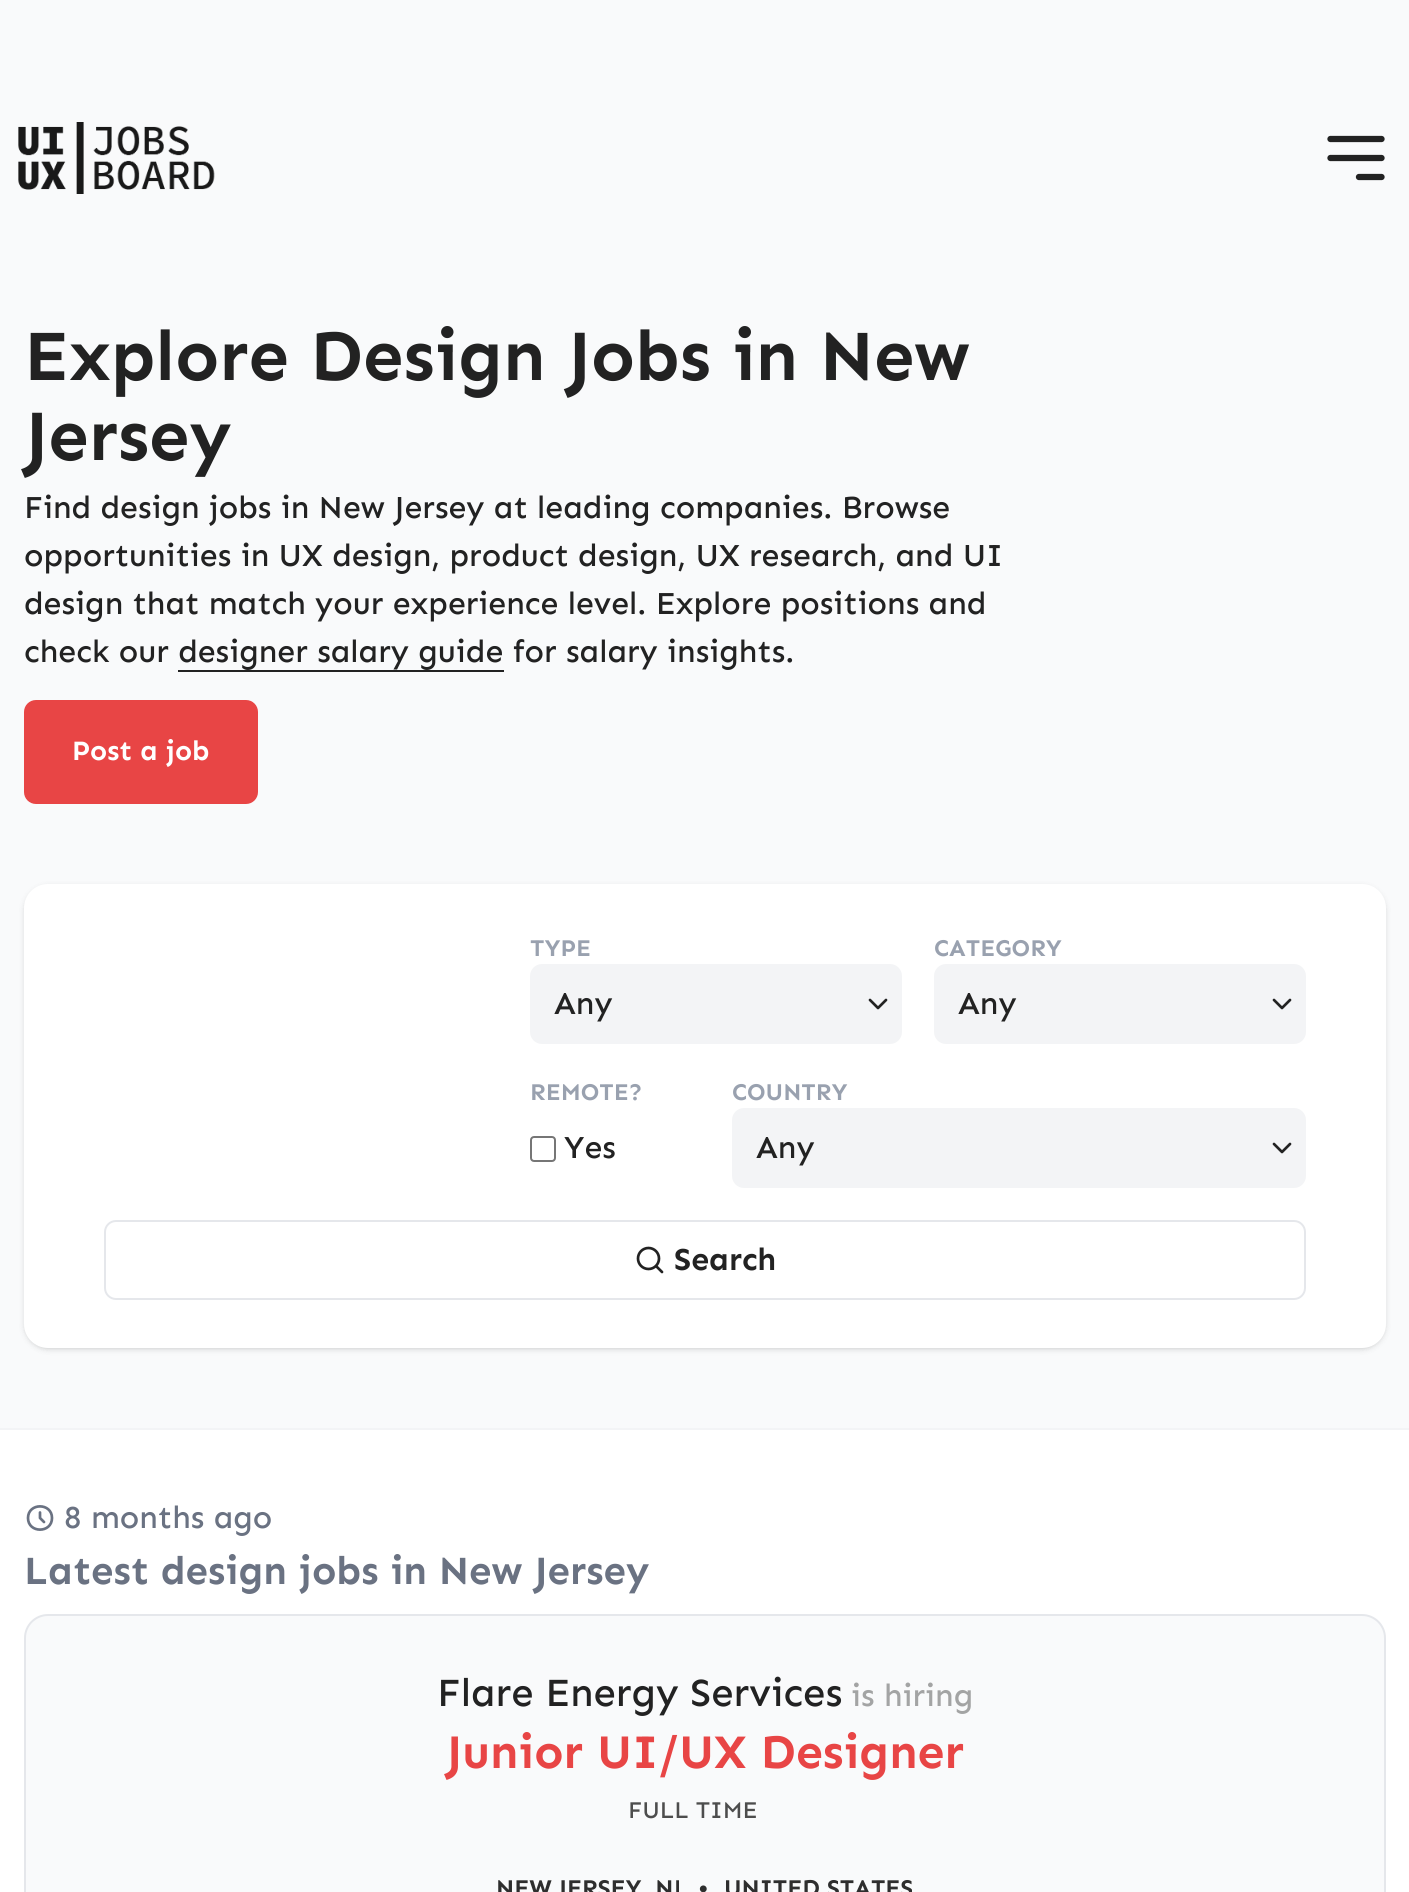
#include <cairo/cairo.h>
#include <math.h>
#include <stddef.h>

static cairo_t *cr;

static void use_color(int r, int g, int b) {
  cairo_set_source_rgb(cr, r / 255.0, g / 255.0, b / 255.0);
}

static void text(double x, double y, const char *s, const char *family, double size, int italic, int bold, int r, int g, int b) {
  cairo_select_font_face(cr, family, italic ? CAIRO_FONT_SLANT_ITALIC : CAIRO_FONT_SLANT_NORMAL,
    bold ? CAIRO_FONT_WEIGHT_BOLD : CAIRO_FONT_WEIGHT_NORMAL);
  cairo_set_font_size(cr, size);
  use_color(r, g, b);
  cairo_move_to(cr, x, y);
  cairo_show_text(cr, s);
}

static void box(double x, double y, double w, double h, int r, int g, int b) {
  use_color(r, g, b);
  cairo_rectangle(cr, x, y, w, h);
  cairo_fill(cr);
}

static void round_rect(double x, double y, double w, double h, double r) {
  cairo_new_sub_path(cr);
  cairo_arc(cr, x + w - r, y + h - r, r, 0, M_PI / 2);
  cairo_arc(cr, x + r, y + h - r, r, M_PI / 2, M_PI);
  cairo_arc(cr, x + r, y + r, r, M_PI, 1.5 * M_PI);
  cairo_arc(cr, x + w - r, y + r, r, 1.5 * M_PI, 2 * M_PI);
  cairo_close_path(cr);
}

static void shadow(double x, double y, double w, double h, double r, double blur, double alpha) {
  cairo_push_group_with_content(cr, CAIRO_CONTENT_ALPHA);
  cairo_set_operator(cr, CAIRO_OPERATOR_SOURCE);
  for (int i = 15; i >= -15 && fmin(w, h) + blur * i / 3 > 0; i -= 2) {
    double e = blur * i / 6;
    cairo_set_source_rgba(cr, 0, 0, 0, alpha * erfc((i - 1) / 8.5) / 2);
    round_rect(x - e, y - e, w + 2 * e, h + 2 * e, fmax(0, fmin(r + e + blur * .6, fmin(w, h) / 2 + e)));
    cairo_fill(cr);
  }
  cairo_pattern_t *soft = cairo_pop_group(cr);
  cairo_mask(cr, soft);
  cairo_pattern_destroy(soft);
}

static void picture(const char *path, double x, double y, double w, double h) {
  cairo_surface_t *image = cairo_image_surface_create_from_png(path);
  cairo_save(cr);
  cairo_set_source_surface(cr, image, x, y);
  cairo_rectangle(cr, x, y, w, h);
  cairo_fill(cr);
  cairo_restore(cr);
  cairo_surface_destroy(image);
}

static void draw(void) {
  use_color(255, 255, 255);
  cairo_paint(cr);
  box(0, 0, 1409, 1428, 249, 250, 251);
  box(0, 1428, 1409, 2, 243, 244, 246);
  picture("img_01.png", 18, 122, 197, 72);
  cairo_new_path(cr);
  cairo_move_to(cr, 1330.5, 139);
  cairo_line_to(cr, 1381.5, 139);
  cairo_move_to(cr, 1330.5, 158);
  cairo_line_to(cr, 1381.5, 158);
  cairo_move_to(cr, 1359, 177);
  cairo_line_to(cr, 1381.5, 177);
  use_color(34, 34, 34);
  cairo_set_line_width(cr, 6.3);
  cairo_set_line_cap(cr, CAIRO_LINE_CAP_ROUND);
  cairo_set_line_join(cr, CAIRO_LINE_JOIN_ROUND);
  cairo_stroke(cr);
  box(178, 670, 326, 2, 34, 34, 34);
  use_color(232, 69, 69);
  round_rect(24, 700, 234, 104, 12);
  cairo_fill(cr);
  use_color(0, 0, 0);
  shadow(26, 888, 1358, 460, 22, 2, 0.1);
  shadow(24, 886, 1362, 464, 24, 3, 0.1);
  use_color(255, 255, 255);
  round_rect(24, 884, 1362, 464, 24);
  cairo_fill(cr);
  use_color(243, 244, 246);
  round_rect(530, 964, 372, 80, 12);
  cairo_fill(cr);
  cairo_new_path(cr);
  cairo_move_to(cr, 870, 1000);
  cairo_line_to(cr, 878, 1008);
  cairo_line_to(cr, 886, 1000);
  use_color(34, 34, 34);
  cairo_set_line_width(cr, 2.7);
  cairo_stroke(cr);
  use_color(243, 244, 246);
  round_rect(934, 964, 372, 80, 12);
  cairo_fill(cr);
  cairo_new_path(cr);
  cairo_move_to(cr, 1274, 1000);
  cairo_line_to(cr, 1282, 1008);
  cairo_line_to(cr, 1290, 1000);
  use_color(34, 34, 34);
  cairo_stroke(cr);
  round_rect(531, 1137, 24, 24, 3);
  use_color(118, 118, 118);
  cairo_set_line_width(cr, 2);
  cairo_set_line_cap(cr, CAIRO_LINE_CAP_BUTT);
  cairo_set_line_join(cr, CAIRO_LINE_JOIN_MITER);
  cairo_stroke(cr);
  use_color(243, 244, 246);
  round_rect(732, 1108, 574, 80, 12);
  cairo_fill(cr);
  cairo_new_path(cr);
  cairo_move_to(cr, 1274, 1144);
  cairo_line_to(cr, 1282, 1152);
  cairo_line_to(cr, 1290, 1144);
  use_color(34, 34, 34);
  cairo_set_line_width(cr, 2.7);
  cairo_set_line_cap(cr, CAIRO_LINE_CAP_ROUND);
  cairo_set_line_join(cr, CAIRO_LINE_JOIN_ROUND);
  cairo_stroke(cr);
  round_rect(105, 1221, 1200, 78, 11);
  use_color(229, 231, 235);
  cairo_set_line_width(cr, 2);
  cairo_set_line_cap(cr, CAIRO_LINE_CAP_BUTT);
  cairo_set_line_join(cr, CAIRO_LINE_JOIN_MITER);
  cairo_stroke(cr);
  cairo_arc(cr, 648.5, 1258.5, 10.5, 0, 2 * M_PI);
  use_color(34, 34, 34);
  cairo_set_line_width(cr, 2.7);
  cairo_stroke(cr);
  cairo_new_path(cr);
  cairo_move_to(cr, 662, 1272);
  cairo_line_to(cr, 656.5, 1266.5);
  cairo_set_line_cap(cr, CAIRO_LINE_CAP_ROUND);
  cairo_set_line_join(cr, CAIRO_LINE_JOIN_ROUND);
  cairo_stroke(cr);
  cairo_new_path(cr);
  cairo_move_to(cr, 40, 1512.5);
  cairo_line_to(cr, 40, 1518);
  cairo_line_to(cr, 44, 1522);
  cairo_move_to(cr, 52, 1518);
  cairo_curve_to(cr, 52, 1533.5, 28, 1533.5, 28, 1518);
  cairo_curve_to(cr, 28, 1502.5, 52, 1502.5, 52, 1518);
  cairo_close_path(cr);
  use_color(106, 114, 130);
  cairo_stroke(cr);
  use_color(249, 250, 251);
  round_rect(25, 1615, 1360, 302, 23);
  cairo_fill_preserve(cr);
  use_color(229, 231, 235);
  cairo_set_line_width(cr, 2);
  cairo_set_line_cap(cr, CAIRO_LINE_CAP_BUTT);
  cairo_set_line_join(cr, CAIRO_LINE_JOIN_MITER);
  cairo_stroke(cr);
  text(24, 380, "Explore Design Jobs in New", "Sen", 72, 0, 1, 34, 34, 34);
  text(24, 460, "Jersey", "Sen", 72, 0, 1, 34, 34, 34);
  text(24, 518, "Find design jobs in New Jersey at leading companies. Browse", "Sen Medium", 32, 0, 0, 34, 34, 34);
  text(24, 566, "opportunities in UX design, product design, UX research, and UI", "Sen Medium", 32, 0, 0, 34, 34, 34);
  text(24, 614, "design that match your experience level. Explore positions and", "Sen Medium", 32, 0, 0, 34, 34, 34);
  text(24, 662, "check our designer salary guide for salary insights.", "Sen Medium", 32, 0, 0, 34, 34, 34);
  text(72, 760, "Post a job", "Sen", 28, 0, 1, 255, 255, 255);
  text(530, 956, "TYPE", "Sen", 24, 0, 1, 153, 161, 175);
  text(554, 1014, "Any", "Sen Medium", 32, 0, 0, 34, 34, 34);
  text(934, 956, "CATEGORY", "Sen", 24, 0, 1, 153, 161, 175);
  text(958, 1014, "Any", "Sen Medium", 32, 0, 0, 34, 34, 34);
  text(530, 1100, "REMOTE?", "Sen", 24, 0, 1, 153, 161, 175);
  text(564, 1158, "Yes", "Sen Medium", 32, 0, 0, 34, 34, 34);
  text(732, 1100, "COUNTRY", "Sen", 24, 0, 1, 153, 161, 175);
  text(756, 1158, "Any", "Sen Medium", 32, 0, 0, 34, 34, 34);
  text(674, 1270, "Search", "Sen", 32, 0, 1, 34, 34, 34);
  text(64, 1528, "8 months ago", "Sen Medium", 32, 0, 0, 106, 114, 130);
  text(24, 1584, "Latest design jobs in New Jersey", "Sen", 40, 0, 1, 106, 114, 130);
  text(437, 1706, "Flare Energy Services", "Sen Medium", 40, 0, 0, 34, 34, 34);
  text(851, 1706, "is hiring", "Sen Medium", 32, 0, 0, 163, 164, 164);
  text(446, 1768, "Junior UI/UX Designer", "Sen", 48, 0, 1, 232, 69, 69);
  text(628, 1818, "FULL TIME", "Sen Medium", 24, 0, 0, 77, 77, 77);
  text(496, 1896, "NEW JERSEY, NJ", "Sen", 24, 0, 1, 46, 46, 46);
  text(698, 1896, "•", "Sen", 24, 0, 1, 46, 46, 46);
  text(724, 1896, "UNITED STATES", "Sen", 24, 0, 1, 46, 46, 46);
}

int main(void) {
  cairo_surface_t *surface = cairo_image_surface_create(CAIRO_FORMAT_RGB24, 1409, 1892);
  cr = cairo_create(surface);
  cairo_font_options_t *options = cairo_font_options_create();
  cairo_font_options_set_hint_metrics(options, CAIRO_HINT_METRICS_OFF);
  cairo_font_options_set_hint_style(options, CAIRO_HINT_STYLE_NONE);
  cairo_set_font_options(cr, options);
  cairo_set_miter_limit(cr, 4);
  draw();
  cairo_surface_write_to_png(surface, "out.png");
  cairo_font_options_destroy(options);
  cairo_destroy(cr);
  cairo_surface_destroy(surface);
  return 0;
}
